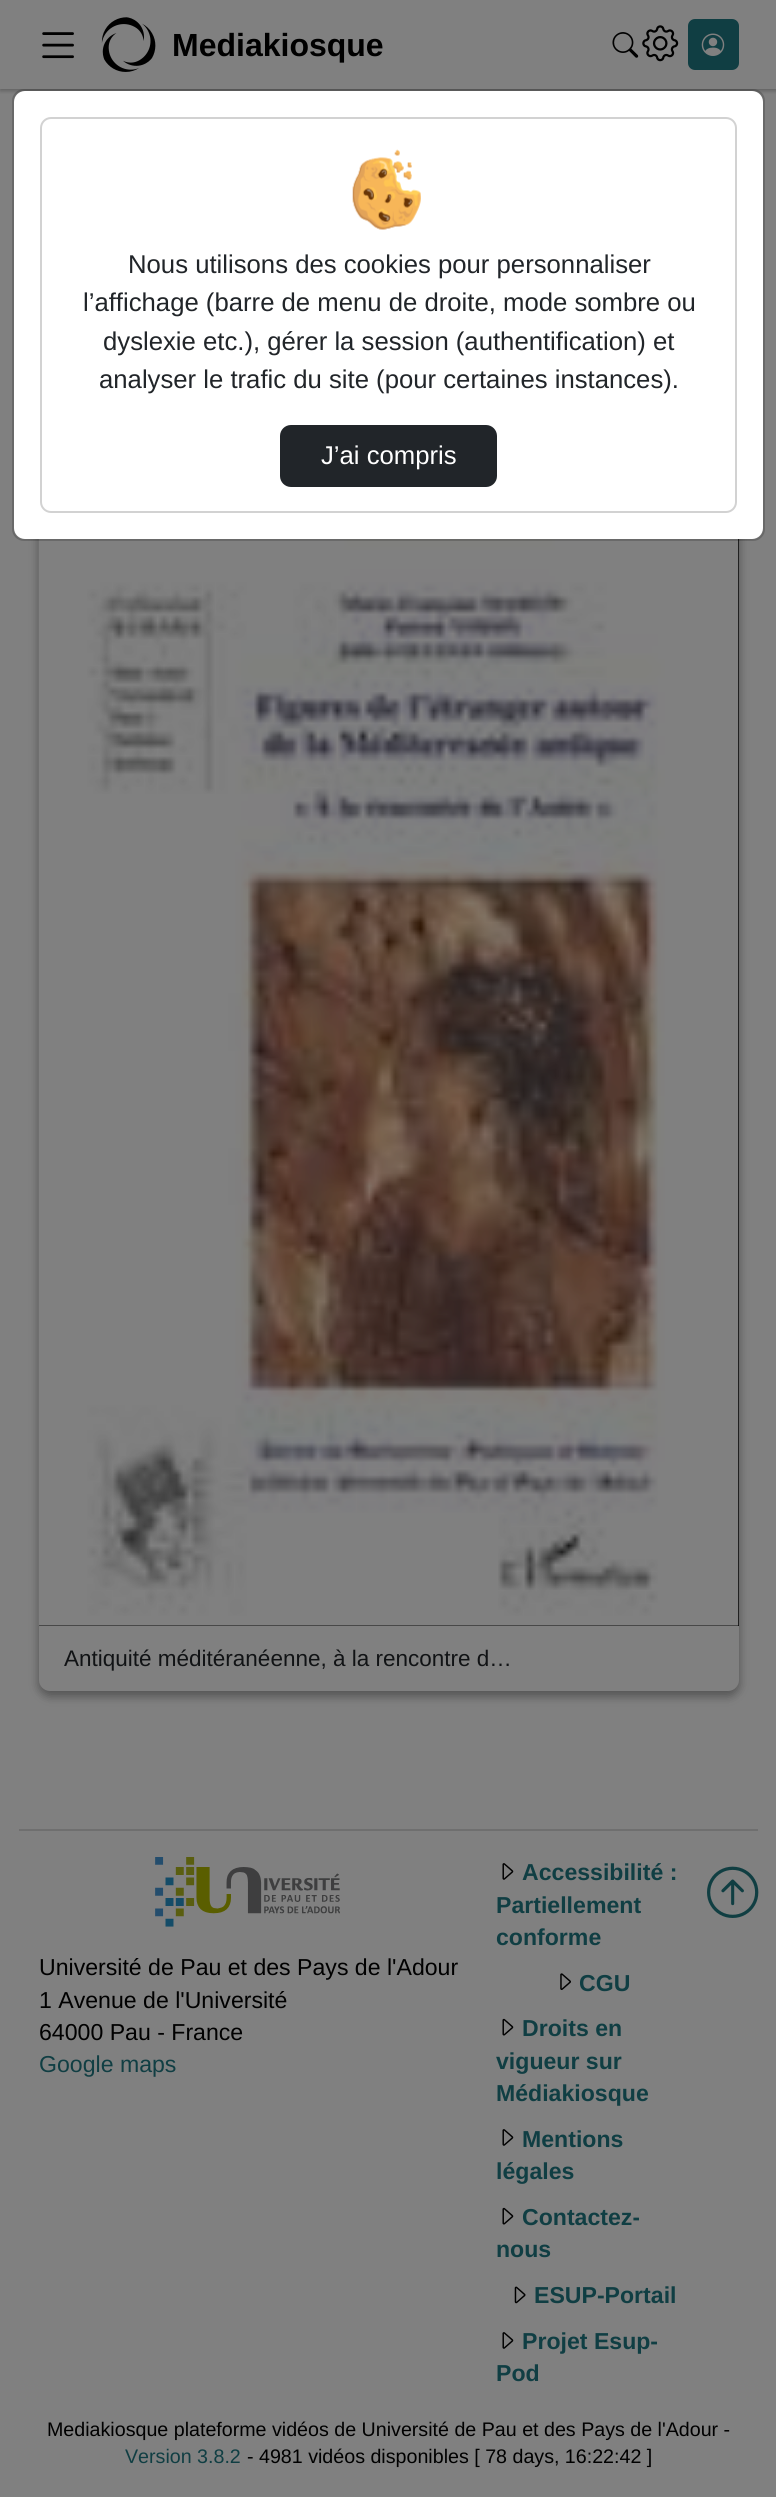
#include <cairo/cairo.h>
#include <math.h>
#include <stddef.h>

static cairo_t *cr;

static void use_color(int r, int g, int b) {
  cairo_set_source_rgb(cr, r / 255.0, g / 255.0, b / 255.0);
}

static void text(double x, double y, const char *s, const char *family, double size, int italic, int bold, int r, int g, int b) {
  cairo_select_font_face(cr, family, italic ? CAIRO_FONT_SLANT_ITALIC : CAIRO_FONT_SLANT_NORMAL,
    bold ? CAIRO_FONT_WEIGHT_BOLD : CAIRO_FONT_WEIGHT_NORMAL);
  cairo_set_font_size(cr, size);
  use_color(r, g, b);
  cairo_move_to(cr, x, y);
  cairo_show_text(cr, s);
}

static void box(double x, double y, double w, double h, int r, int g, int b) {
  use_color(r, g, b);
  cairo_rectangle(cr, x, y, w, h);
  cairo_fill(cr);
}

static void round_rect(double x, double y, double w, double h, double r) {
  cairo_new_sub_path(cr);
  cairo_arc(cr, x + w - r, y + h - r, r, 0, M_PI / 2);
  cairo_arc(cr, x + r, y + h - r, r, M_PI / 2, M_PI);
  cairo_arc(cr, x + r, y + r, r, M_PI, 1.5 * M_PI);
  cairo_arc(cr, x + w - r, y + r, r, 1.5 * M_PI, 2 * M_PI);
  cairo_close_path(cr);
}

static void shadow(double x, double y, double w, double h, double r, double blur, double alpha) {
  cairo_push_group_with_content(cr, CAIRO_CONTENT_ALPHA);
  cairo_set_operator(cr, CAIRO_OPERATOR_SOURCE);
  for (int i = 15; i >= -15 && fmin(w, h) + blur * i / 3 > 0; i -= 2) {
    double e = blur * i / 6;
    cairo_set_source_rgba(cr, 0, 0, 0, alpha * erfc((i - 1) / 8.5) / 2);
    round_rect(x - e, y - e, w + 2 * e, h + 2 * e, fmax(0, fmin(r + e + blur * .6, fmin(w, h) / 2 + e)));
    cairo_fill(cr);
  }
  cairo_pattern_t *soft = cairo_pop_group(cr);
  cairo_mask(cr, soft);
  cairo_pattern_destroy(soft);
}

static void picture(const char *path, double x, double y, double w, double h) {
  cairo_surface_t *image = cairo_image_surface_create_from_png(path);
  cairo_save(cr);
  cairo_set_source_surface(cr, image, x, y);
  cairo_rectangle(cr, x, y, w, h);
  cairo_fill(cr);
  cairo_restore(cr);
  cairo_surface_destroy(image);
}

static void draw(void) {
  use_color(128, 128, 128);
  cairo_paint(cr);
  cairo_save(cr);
  cairo_rectangle(cr, 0, 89, 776, 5);
  cairo_clip(cr);
  use_color(0, 0, 0);
  shadow(0, 2, 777, 89, 0, 2, 0.24);
  cairo_restore(cr);
  picture("img_01.png", 42, 32, 32, 27);
  picture("img_02.png", 101, 17, 55, 55);
  picture("img_03.png", 612, 32, 27, 26);
  picture("img_04.png", 642, 25, 37, 37);
  use_color(16, 62, 67);
  round_rect(689, 20, 49, 49, 6);
  cairo_fill_preserve(cr);
  cairo_stroke(cr);
  picture("img_05.png", 701, 33, 24, 23);
  use_color(0, 0, 0);
  shadow(39, 483, 700, 1213, 11, 5, 0.23);
  shadow(39, 483, 700, 1213, 11, 5, 0.16);
  use_color(128, 128, 128);
  round_rect(39, 478, 700, 1213, 11);
  cairo_fill(cr);
  use_color(255, 255, 255);
  round_rect(14, 91, 749, 448, 11);
  cairo_fill(cr);
  box(39, 539, 700, 1087, 0, 0, 0);
  picture("img_07.png", 38, 539, 701, 1087);
  round_rect(13, 90, 751, 450, 11);
  cairo_set_source_rgba(cr, 0, 0, 0, 0.18);
  cairo_stroke(cr);
  round_rect(41, 118, 695, 394, 10);
  use_color(210, 210, 210);
  cairo_stroke(cr);
  picture("img_06.png", 352, 149, 69, 81);
  use_color(33, 37, 41);
  round_rect(281, 426, 215, 60, 10);
  cairo_fill_preserve(cr);
  cairo_stroke(cr);
  box(19, 1829, 739, 2, 111, 111, 111);
  picture("img_08.png", 155, 1857, 185, 70);
  picture("img_09.png", 502, 1863, 12, 17);
  picture("img_10.png", 560, 1973, 11, 17);
  picture("img_11.png", 502, 2018, 12, 18);
  picture("img_09.png", 502, 2129, 12, 17);
  picture("img_11.png", 502, 2207, 12, 18);
  picture("img_12.png", 514, 2286, 12, 18);
  picture("img_09.png", 502, 2332, 12, 17);
  picture("img_13.png", 707, 1866, 52, 52);
  text(172, 56, "Mediakiosque", "Liberation Sans", 32, 0, 1, 0, 0, 0);
  text(128, 273, "Nous utilisons des cookies pour personnaliser", "Liberation Sans", 25.7, 0, 0, 33, 37, 41);
  text(83, 311, "l’affichage (barre de menu de droite, mode sombre ou", "Liberation Sans", 25.7, 0, 0, 33, 37, 41);
  text(103, 350, "dyslexie etc.), gérer la session (authentification) et", "Liberation Sans", 25.7, 0, 0, 33, 37, 41);
  text(99, 388, "analyser le trafic du site (pour certaines instances).", "Liberation Sans", 25.7, 0, 0, 33, 37, 41);
  text(321, 464, "J’ai compris", "Liberation Sans", 25.7, 0, 0, 255, 255, 255);
  text(64, 1666, "Antiquité méditéranéenne, à la rencontre d…", "Liberation Sans", 22.5, 0, 0, 17, 19, 21);
  text(39, 1975, "Université de Pau et des Pays de l'Adour", "Liberation Sans", 23.1, 0, 0, 0, 0, 0);
  text(39, 2008, "1 Avenue de l'Université", "Liberation Sans", 23.1, 0, 0, 0, 0, 0);
  text(39, 2040, "64000 Pau - France", "Liberation Sans", 23.1, 0, 0, 0, 0, 0);
  text(39, 2072, "Google maps", "Liberation Sans", 23.1, 0, 0, 16, 62, 67);
  text(522, 1880, "Accessibilité :", "Liberation Sans", 23.1, 0, 1, 16, 62, 67);
  text(496, 1913, "Partiellement", "Liberation Sans", 23.1, 0, 1, 16, 62, 67);
  text(496, 1945, "conforme", "Liberation Sans", 23.1, 0, 1, 16, 62, 67);
  text(579, 1991, "CGU", "Liberation Sans", 23.1, 0, 1, 16, 62, 67);
  text(522, 2036, "Droits en", "Liberation Sans", 23.1, 0, 1, 16, 62, 67);
  text(496, 2069, "vigueur sur", "Liberation Sans", 23.1, 0, 1, 16, 62, 67);
  text(496, 2101, "Médiakiosque", "Liberation Sans", 23.1, 0, 1, 16, 62, 67);
  text(522, 2147, "Mentions", "Liberation Sans", 23.1, 0, 1, 16, 62, 67);
  text(496, 2179, "légales", "Liberation Sans", 23.1, 0, 1, 16, 62, 67);
  text(522, 2225, "Contactez-", "Liberation Sans", 23.1, 0, 1, 16, 62, 67);
  text(496, 2257, "nous", "Liberation Sans", 23.1, 0, 1, 16, 62, 67);
  text(534, 2303, "ESUP-Portail", "Liberation Sans", 23.1, 0, 1, 16, 62, 67);
  text(522, 2349, "Projet Esup-", "Liberation Sans", 23.1, 0, 1, 16, 62, 67);
  text(496, 2381, "Pod", "Liberation Sans", 23.1, 0, 1, 16, 62, 67);
  text(47, 2436, "Mediakiosque plateforme vidéos de Université de Pau et des Pays de l'Adour -", "Liberation Sans", 19.65, 0, 0, 0, 0, 0);
  text(125, 2463, "Version 3.8.2", "Liberation Sans", 19.65, 0, 0, 16, 62, 67);
  text(247, 2463, "- 4981 vidéos disponibles [ 78 days, 16:22:42 ]", "Liberation Sans", 19.65, 0, 0, 0, 0, 0);
}

int main(void) {
  cairo_surface_t *surface = cairo_image_surface_create(CAIRO_FORMAT_RGB24, 776, 2497);
  cr = cairo_create(surface);
  cairo_font_options_t *options = cairo_font_options_create();
  cairo_font_options_set_hint_metrics(options, CAIRO_HINT_METRICS_OFF);
  cairo_font_options_set_hint_style(options, CAIRO_HINT_STYLE_NONE);
  cairo_set_font_options(cr, options);
  cairo_set_miter_limit(cr, 4);
  draw();
  cairo_surface_write_to_png(surface, "out.png");
  cairo_font_options_destroy(options);
  cairo_destroy(cr);
  cairo_surface_destroy(surface);
  return 0;
}
